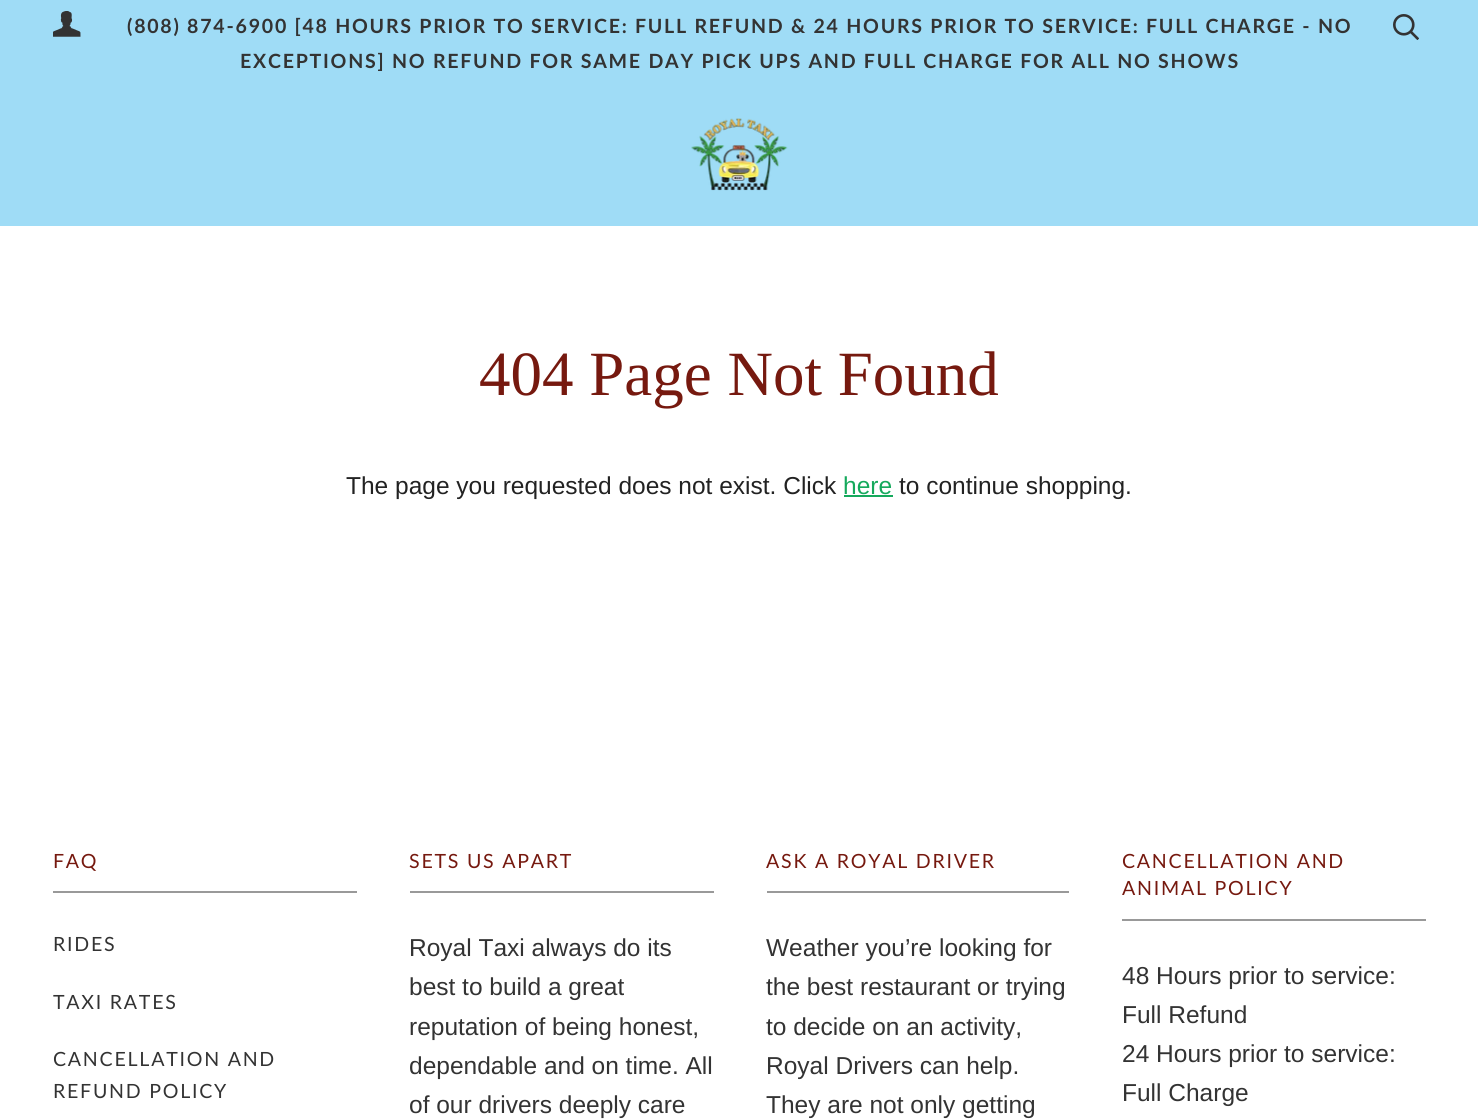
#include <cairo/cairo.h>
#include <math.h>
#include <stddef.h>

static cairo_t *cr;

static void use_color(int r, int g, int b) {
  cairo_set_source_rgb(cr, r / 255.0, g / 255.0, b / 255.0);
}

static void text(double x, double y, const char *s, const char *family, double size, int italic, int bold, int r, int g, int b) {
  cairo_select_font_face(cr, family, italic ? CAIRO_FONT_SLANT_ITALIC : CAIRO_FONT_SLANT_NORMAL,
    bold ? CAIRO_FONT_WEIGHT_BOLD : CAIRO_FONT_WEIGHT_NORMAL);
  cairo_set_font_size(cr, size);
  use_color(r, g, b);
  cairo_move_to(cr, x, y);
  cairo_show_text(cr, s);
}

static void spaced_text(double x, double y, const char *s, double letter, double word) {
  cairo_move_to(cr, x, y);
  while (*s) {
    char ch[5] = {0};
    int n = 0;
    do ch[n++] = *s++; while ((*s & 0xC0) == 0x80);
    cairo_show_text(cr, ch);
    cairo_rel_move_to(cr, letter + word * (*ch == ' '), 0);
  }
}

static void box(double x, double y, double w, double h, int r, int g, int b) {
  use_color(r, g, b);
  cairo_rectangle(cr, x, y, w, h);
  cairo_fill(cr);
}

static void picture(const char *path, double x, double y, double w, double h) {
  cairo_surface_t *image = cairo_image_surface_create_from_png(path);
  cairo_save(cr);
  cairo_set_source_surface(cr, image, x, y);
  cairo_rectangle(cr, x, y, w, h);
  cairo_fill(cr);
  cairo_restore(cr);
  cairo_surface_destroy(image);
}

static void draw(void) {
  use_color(255, 255, 255);
  cairo_paint(cr);
  box(0, 0, 1478, 226, 159, 220, 246);
  picture("img_01.png", 53, 11, 28, 26);
  picture("img_02.png", 1393, 14, 26, 26);
  picture("img_03.png", 691, 118, 97, 73);
  box(844, 495, 49, 2, 21, 169, 92);
  box(53, 891, 304, 2, 153, 153, 153);
  box(410, 891, 304, 2, 153, 153, 153);
  box(767, 891, 302, 2, 153, 153, 153);
  box(1122, 919, 304, 2, 153, 153, 153);
  cairo_select_font_face(cr, "Lato", CAIRO_FONT_SLANT_NORMAL, CAIRO_FONT_WEIGHT_BOLD);
  cairo_set_font_size(cr, 19.6);
  use_color(51, 51, 51);
  spaced_text(127, 33, "(808) 874-6900 [48 HOURS PRIOR TO SERVICE: FULL REFUND & 24 HOURS PRIOR TO SERVICE: FULL CHARGE - NO", 1.75, 0);
  spaced_text(240, 68, "EXCEPTIONS] NO REFUND FOR SAME DAY PICK UPS AND FULL CHARGE FOR ALL NO SHOWS", 1.75, 0);
  text(479, 395, "404 Page Not Found", "Liberation Serif", 63, 0, 0, 118, 25, 15);
  text(346, 494, "The page you requested does not exist. Click", "Liberation Sans", 24.5, 0, 0, 34, 34, 34);
  text(843, 494, "here", "Liberation Sans", 24.5, 0, 0, 21, 169, 92);
  text(899, 494, "to continue shopping.", "Liberation Sans", 24.5, 0, 0, 34, 34, 34);
  cairo_select_font_face(cr, "Lato", CAIRO_FONT_SLANT_NORMAL, CAIRO_FONT_WEIGHT_NORMAL);
  cairo_set_font_size(cr, 19.6);
  use_color(118, 25, 15);
  spaced_text(53, 868, "FAQ", 1.75, 0);
  use_color(51, 51, 51);
  spaced_text(53, 951, "RIDES", 1.75, 0);
  spaced_text(53, 1009, "TAXI RATES", 1.75, 0);
  spaced_text(53, 1066, "CANCELLATION AND", 1.75, 0);
  spaced_text(53, 1098, "REFUND POLICY", 1.75, 0);
  use_color(118, 25, 15);
  spaced_text(409, 868, "SETS US APART", 1.75, 0);
  text(409, 956, "Royal Taxi always do its", "Liberation Sans", 24.5, 0, 0, 51, 51, 51);
  text(409, 995, "best to build a great", "Liberation Sans", 24.5, 0, 0, 51, 51, 51);
  text(409, 1035, "reputation of being honest,", "Liberation Sans", 24.5, 0, 0, 51, 51, 51);
  text(409, 1074, "dependable and on time. All", "Liberation Sans", 24.5, 0, 0, 51, 51, 51);
  text(409, 1113, "of our drivers deeply care", "Liberation Sans", 24.5, 0, 0, 51, 51, 51);
  cairo_select_font_face(cr, "Lato", CAIRO_FONT_SLANT_NORMAL, CAIRO_FONT_WEIGHT_NORMAL);
  cairo_set_font_size(cr, 19.6);
  use_color(118, 25, 15);
  spaced_text(766, 868, "ASK A ROYAL DRIVER", 1.75, 0);
  text(766, 956, "Weather you’re looking for", "Liberation Sans", 24.5, 0, 0, 51, 51, 51);
  text(766, 995, "the best restaurant or trying", "Liberation Sans", 24.5, 0, 0, 51, 51, 51);
  text(766, 1035, "to decide on an activity,", "Liberation Sans", 24.5, 0, 0, 51, 51, 51);
  text(766, 1074, "Royal Drivers can help.", "Liberation Sans", 24.5, 0, 0, 51, 51, 51);
  text(766, 1113, "They are not only getting", "Liberation Sans", 24.5, 0, 0, 51, 51, 51);
  cairo_select_font_face(cr, "Lato", CAIRO_FONT_SLANT_NORMAL, CAIRO_FONT_WEIGHT_NORMAL);
  cairo_set_font_size(cr, 19.6);
  use_color(118, 25, 15);
  spaced_text(1122, 868, "CANCELLATION AND", 1.75, 0);
  spaced_text(1122, 895, "ANIMAL POLICY", 1.75, 0);
  text(1122, 984, "48 Hours prior to service:", "Liberation Sans", 24.5, 0, 0, 51, 51, 51);
  text(1122, 1023, "Full Refund", "Liberation Sans", 24.5, 0, 0, 51, 51, 51);
  text(1122, 1062, "24 Hours prior to service:", "Liberation Sans", 24.5, 0, 0, 51, 51, 51);
  text(1122, 1101, "Full Charge", "Liberation Sans", 24.5, 0, 0, 51, 51, 51);
}

int main(void) {
  cairo_surface_t *surface = cairo_image_surface_create(CAIRO_FORMAT_RGB24, 1478, 1120);
  cr = cairo_create(surface);
  cairo_font_options_t *options = cairo_font_options_create();
  cairo_font_options_set_hint_metrics(options, CAIRO_HINT_METRICS_OFF);
  cairo_font_options_set_hint_style(options, CAIRO_HINT_STYLE_NONE);
  cairo_set_font_options(cr, options);
  cairo_set_miter_limit(cr, 4);
  draw();
  cairo_surface_write_to_png(surface, "out.png");
  cairo_font_options_destroy(options);
  cairo_destroy(cr);
  cairo_surface_destroy(surface);
  return 0;
}
